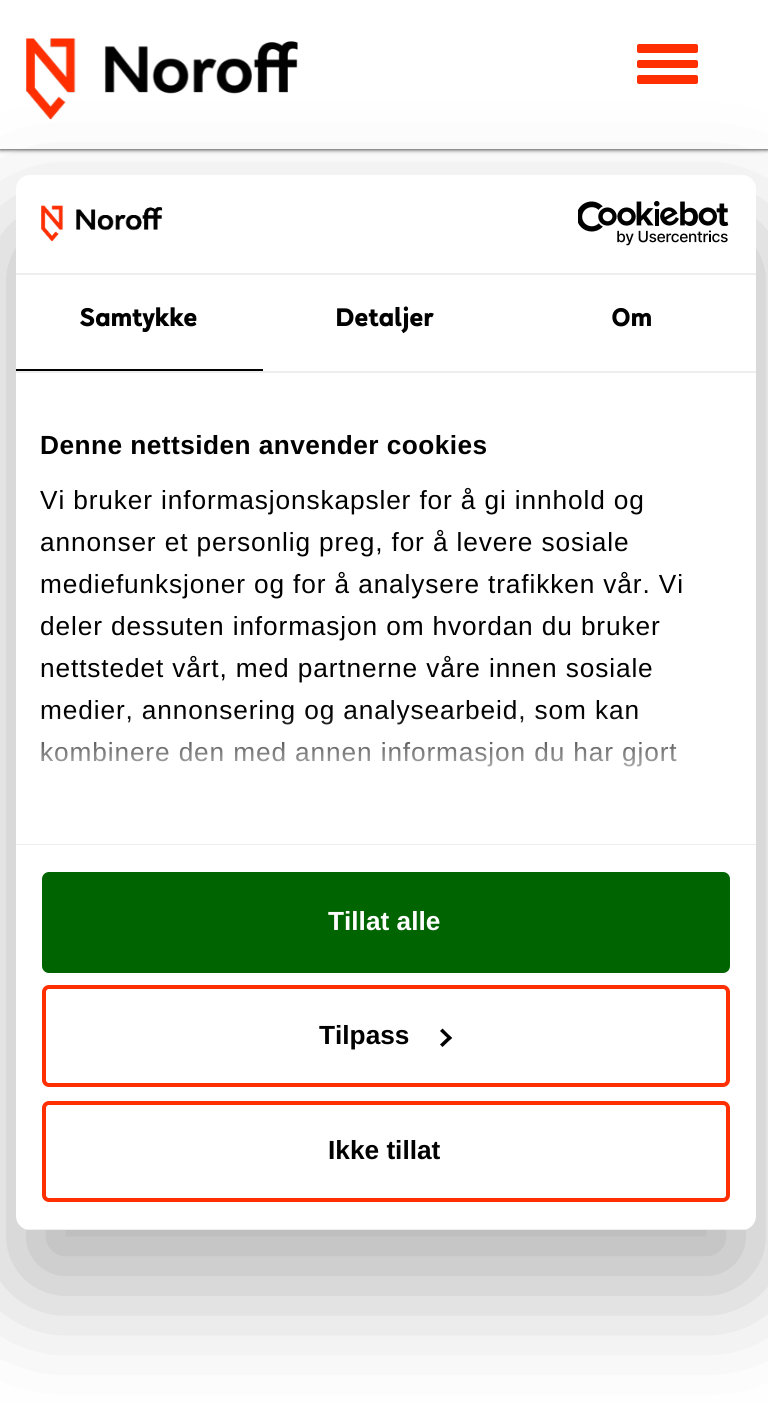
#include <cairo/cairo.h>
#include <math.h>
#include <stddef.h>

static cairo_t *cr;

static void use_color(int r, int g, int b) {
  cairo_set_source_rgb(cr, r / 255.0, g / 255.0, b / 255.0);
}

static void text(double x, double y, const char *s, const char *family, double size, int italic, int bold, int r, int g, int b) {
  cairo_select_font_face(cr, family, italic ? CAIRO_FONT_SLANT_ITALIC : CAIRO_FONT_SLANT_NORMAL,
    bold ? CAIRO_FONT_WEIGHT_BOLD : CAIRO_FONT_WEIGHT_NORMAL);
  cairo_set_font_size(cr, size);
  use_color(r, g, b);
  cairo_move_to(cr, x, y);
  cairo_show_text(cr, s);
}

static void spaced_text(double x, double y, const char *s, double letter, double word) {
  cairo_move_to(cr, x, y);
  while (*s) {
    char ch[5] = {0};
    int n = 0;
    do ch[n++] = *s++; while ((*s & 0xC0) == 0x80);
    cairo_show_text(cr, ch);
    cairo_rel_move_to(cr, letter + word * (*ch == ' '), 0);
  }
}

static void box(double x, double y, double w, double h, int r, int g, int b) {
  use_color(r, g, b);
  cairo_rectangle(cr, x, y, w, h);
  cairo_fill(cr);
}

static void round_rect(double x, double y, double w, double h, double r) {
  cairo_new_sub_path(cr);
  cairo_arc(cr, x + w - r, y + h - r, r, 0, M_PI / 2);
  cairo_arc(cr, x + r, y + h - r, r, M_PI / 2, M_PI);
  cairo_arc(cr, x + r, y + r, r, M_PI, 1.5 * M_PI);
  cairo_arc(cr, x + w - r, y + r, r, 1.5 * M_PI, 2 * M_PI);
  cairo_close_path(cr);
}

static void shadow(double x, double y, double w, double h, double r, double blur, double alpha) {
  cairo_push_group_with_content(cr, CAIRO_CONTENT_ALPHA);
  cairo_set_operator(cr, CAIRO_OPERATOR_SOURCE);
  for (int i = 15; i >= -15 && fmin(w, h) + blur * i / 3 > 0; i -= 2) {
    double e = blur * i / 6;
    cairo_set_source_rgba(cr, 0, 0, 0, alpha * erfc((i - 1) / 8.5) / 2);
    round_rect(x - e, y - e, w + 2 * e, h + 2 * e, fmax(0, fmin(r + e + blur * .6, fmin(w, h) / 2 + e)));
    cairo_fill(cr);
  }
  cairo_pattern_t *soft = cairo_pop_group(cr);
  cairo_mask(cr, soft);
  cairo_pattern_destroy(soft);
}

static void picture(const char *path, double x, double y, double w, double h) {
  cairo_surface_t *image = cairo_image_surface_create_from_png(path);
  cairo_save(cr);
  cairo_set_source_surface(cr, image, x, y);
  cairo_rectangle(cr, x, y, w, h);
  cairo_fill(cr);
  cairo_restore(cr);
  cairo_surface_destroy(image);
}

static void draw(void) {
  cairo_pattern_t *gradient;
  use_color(255, 255, 255);
  cairo_paint(cr);
  use_color(0, 0, 0);
  shadow(0, 0, 768, 149, 0, 2.5, 1);
  box(0, 0, 768, 149, 255, 255, 255);
  picture("img_01.png", 26, 38, 272, 82);
  use_color(255, 47, 2);
  round_rect(637, 44, 61, 9, 2);
  cairo_fill(cr);
  round_rect(637, 60, 61, 8, 2);
  cairo_fill(cr);
  round_rect(637, 75, 61, 9, 2);
  cairo_fill(cr);
  use_color(0, 0, 0);
  shadow(16, 231, 740, 1055, 14, 59.5, 0.3);
  use_color(255, 255, 255);
  round_rect(16, 175, 740, 1055, 14);
  cairo_fill(cr);
  box(16, 273, 740, 2, 238, 238, 238);
  picture("img_02.png", 41, 205, 122, 37);
  picture("img_03.png", 578, 201, 151, 45);
  box(16, 371, 740, 2, 238, 238, 238);
  box(16, 369, 247, 2, 0, 0, 0);
  box(16, 844, 740, 1, 238, 238, 238);
  cairo_save(cr);
  round_rect(16, 175, 740, 1055, 14);
  cairo_clip(cr);
  box(25, 1229, 722, 1, 238, 238, 238);
  cairo_restore(cr);
  use_color(0, 100, 1);
  round_rect(44, 874, 684, 97, 5);
  cairo_fill_preserve(cr);
  cairo_set_line_width(cr, 4);
  cairo_stroke(cr);
  round_rect(44, 987, 684, 98, 5);
  use_color(255, 47, 2);
  cairo_stroke(cr);
  use_color(0, 0, 0);
  cairo_new_path(cr);
  cairo_move_to(cr, 442.5, 1028.5);
  cairo_line_to(cr, 452, 1038);
  cairo_line_to(cr, 449.5, 1040);
  cairo_line_to(cr, 440, 1031);
  cairo_close_path(cr);
  cairo_fill(cr);
  cairo_new_path(cr);
  cairo_move_to(cr, 449.5, 1035.5);
  cairo_line_to(cr, 452, 1038);
  cairo_line_to(cr, 442.5, 1047);
  cairo_line_to(cr, 440, 1044.5);
  cairo_close_path(cr);
  cairo_fill(cr);
  round_rect(44, 1103, 684, 97, 5);
  use_color(255, 47, 2);
  cairo_stroke(cr);
  cairo_select_font_face(cr, "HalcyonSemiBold", CAIRO_FONT_SLANT_NORMAL, CAIRO_FONT_WEIGHT_BOLD);
  cairo_set_font_size(cr, 26.25);
  use_color(0, 0, 0);
  spaced_text(79, 326, "Samtykke", 0.25, 0);
  spaced_text(335, 326, "Detaljer", 0.25, 0);
  spaced_text(611, 326, "Om", 0.25, 0);
  cairo_select_font_face(cr, "Liberation Sans", CAIRO_FONT_SLANT_NORMAL, CAIRO_FONT_WEIGHT_BOLD);
  spaced_text(40, 454, "Denne nettsiden anvender cookies", 0.45, 0);
  cairo_select_font_face(cr, "Liberation Sans", CAIRO_FONT_SLANT_NORMAL, CAIRO_FONT_WEIGHT_NORMAL);
  spaced_text(40, 509, "Vi bruker informasjonskapsler for å gi innhold og", 0.88, 0);
  spaced_text(40, 551, "annonser et personlig preg, for å levere sosiale", 0.88, 0);
  spaced_text(40, 593, "mediefunksjoner og for å analysere trafikken vår. Vi", 0.88, 0);
  spaced_text(40, 635, "deler dessuten informasjon om hvordan du bruker", 0.88, 0);
  spaced_text(40, 677, "nettstedet vårt, med partnerne våre innen sosiale", 0.88, 0);
  spaced_text(40, 719, "medier, annonsering og analysearbeid, som kan", 0.88, 0);
  spaced_text(40, 761, "kombinere den med annen informasjon du har gjort", 0.88, 0);
  gradient = cairo_pattern_create_linear(374, 843, 374, 712);
  cairo_pattern_add_color_stop_rgba(gradient, 0, 1, 1, 1, 1);
  cairo_pattern_add_color_stop_rgba(gradient, 0.5, 1, 1, 1, 0.8);
  cairo_pattern_add_color_stop_rgba(gradient, 1, 1, 1, 1, 0);
  cairo_set_source(cr, gradient);
  cairo_pattern_destroy(gradient);
  cairo_rectangle(cr, 42, 714, 635, 53);
  cairo_fill(cr);
  text(328, 930, "Tillat alle", "Liberation Sans", 26.25, 0, 1, 255, 255, 255);
  text(319, 1044, "Tilpass", "Liberation Sans", 26.25, 0, 1, 0, 0, 0);
  text(328, 1159, "Ikke tillat", "Liberation Sans", 26.25, 0, 1, 0, 0, 0);
}

int main(void) {
  cairo_surface_t *surface = cairo_image_surface_create(CAIRO_FORMAT_RGB24, 768, 1402);
  cr = cairo_create(surface);
  cairo_font_options_t *options = cairo_font_options_create();
  cairo_font_options_set_hint_metrics(options, CAIRO_HINT_METRICS_OFF);
  cairo_font_options_set_hint_style(options, CAIRO_HINT_STYLE_NONE);
  cairo_set_font_options(cr, options);
  cairo_set_miter_limit(cr, 4);
  draw();
  cairo_surface_write_to_png(surface, "out.png");
  cairo_font_options_destroy(options);
  cairo_destroy(cr);
  cairo_surface_destroy(surface);
  return 0;
}
